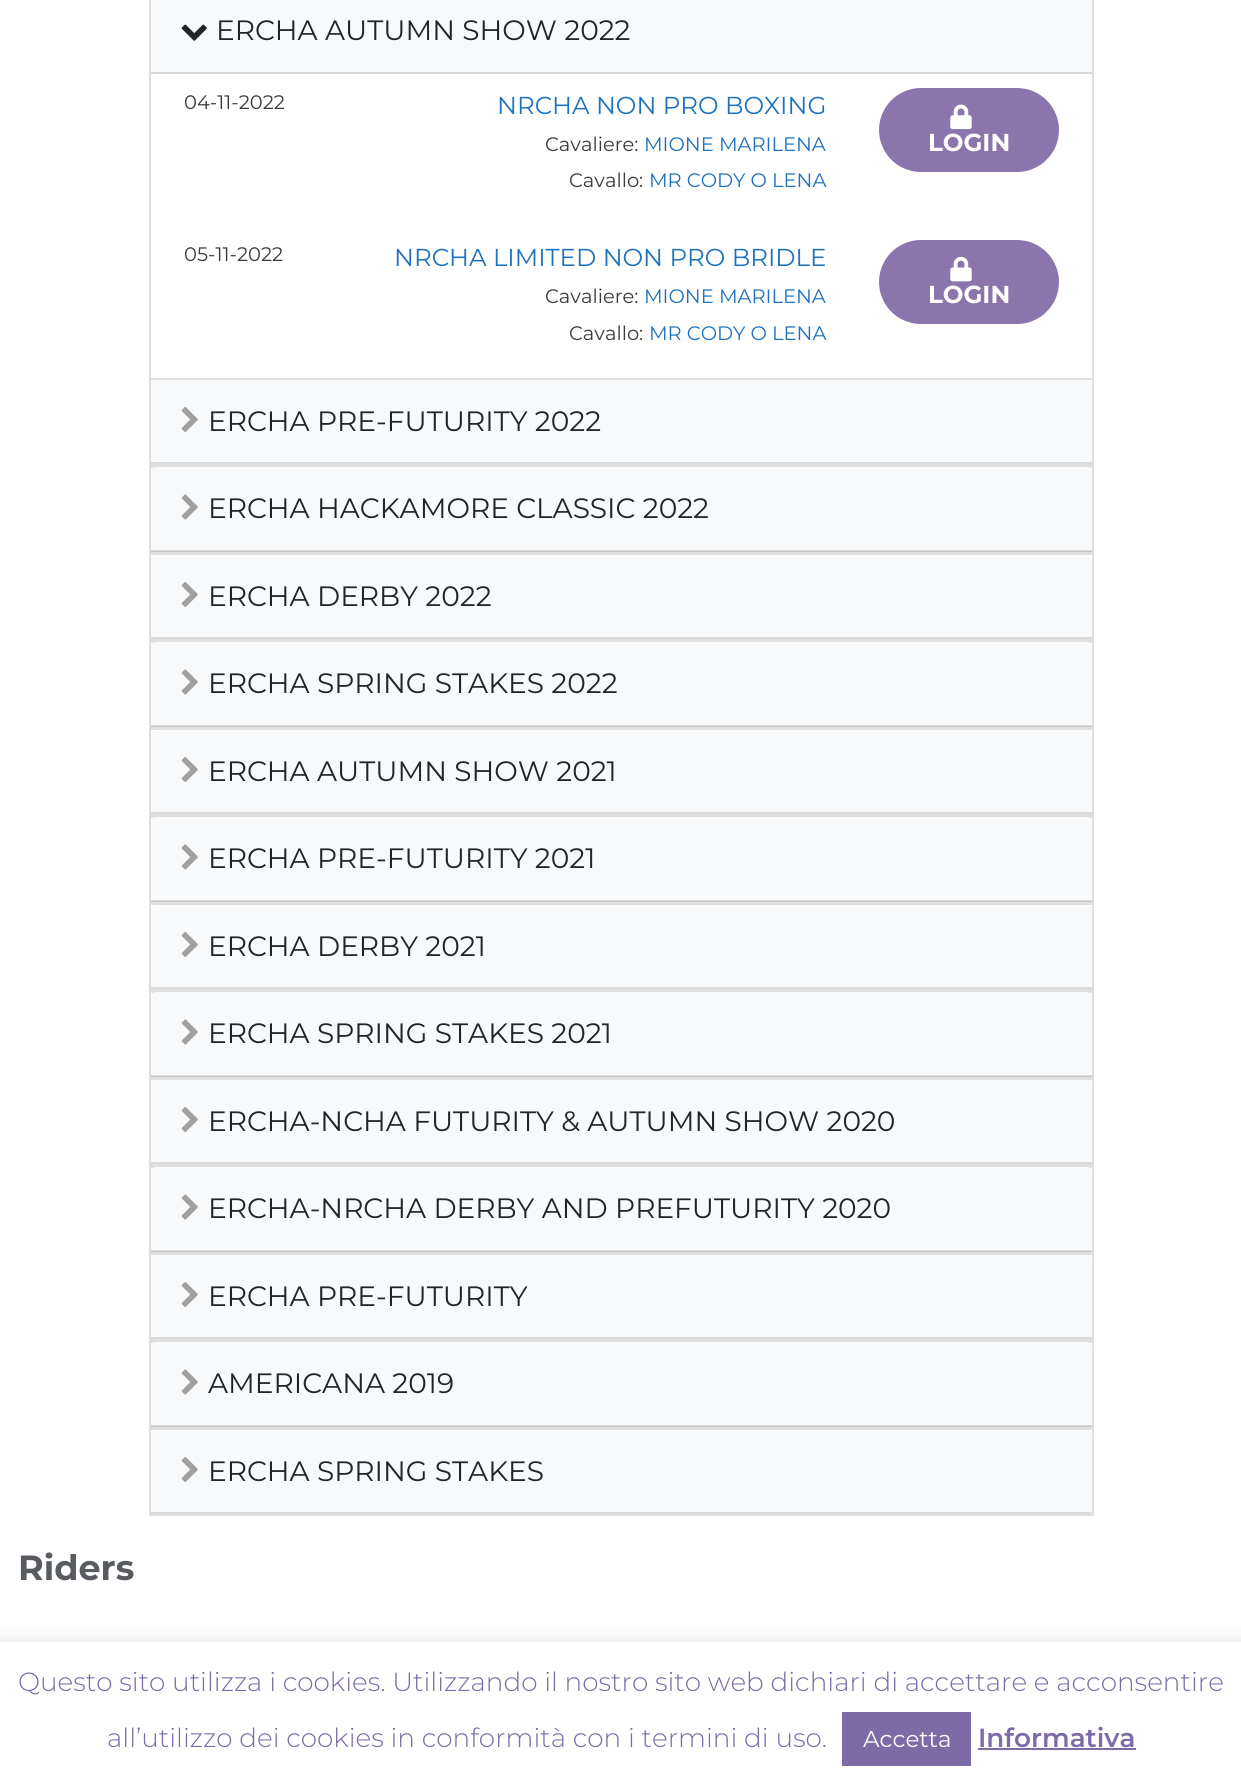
#include <cairo/cairo.h>
#include <math.h>
#include <stddef.h>

static cairo_t *cr;

static void use_color(int r, int g, int b) {
  cairo_set_source_rgb(cr, r / 255.0, g / 255.0, b / 255.0);
}

static void text(double x, double y, const char *s, const char *family, double size, int italic, int bold, int r, int g, int b) {
  cairo_select_font_face(cr, family, italic ? CAIRO_FONT_SLANT_ITALIC : CAIRO_FONT_SLANT_NORMAL,
    bold ? CAIRO_FONT_WEIGHT_BOLD : CAIRO_FONT_WEIGHT_NORMAL);
  cairo_set_font_size(cr, size);
  use_color(r, g, b);
  cairo_move_to(cr, x, y);
  cairo_show_text(cr, s);
}

static void box(double x, double y, double w, double h, int r, int g, int b) {
  use_color(r, g, b);
  cairo_rectangle(cr, x, y, w, h);
  cairo_fill(cr);
}

static void round_rect(double x, double y, double w, double h, double r) {
  cairo_new_sub_path(cr);
  cairo_arc(cr, x + w - r, y + h - r, r, 0, M_PI / 2);
  cairo_arc(cr, x + r, y + h - r, r, M_PI / 2, M_PI);
  cairo_arc(cr, x + r, y + r, r, M_PI, 1.5 * M_PI);
  cairo_arc(cr, x + w - r, y + r, r, 1.5 * M_PI, 2 * M_PI);
  cairo_close_path(cr);
}

static void shadow(double x, double y, double w, double h, double r, double blur, double alpha) {
  cairo_push_group_with_content(cr, CAIRO_CONTENT_ALPHA);
  cairo_set_operator(cr, CAIRO_OPERATOR_SOURCE);
  for (int i = 15; i >= -15 && fmin(w, h) + blur * i / 3 > 0; i -= 2) {
    double e = blur * i / 6;
    cairo_set_source_rgba(cr, 0, 0, 0, alpha * erfc((i - 1) / 8.5) / 2);
    round_rect(x - e, y - e, w + 2 * e, h + 2 * e, fmax(0, fmin(r + e + blur * .6, fmin(w, h) / 2 + e)));
    cairo_fill(cr);
  }
  cairo_pattern_t *soft = cairo_pop_group(cr);
  cairo_mask(cr, soft);
  cairo_pattern_destroy(soft);
}

static void picture(const char *path, double x, double y, double w, double h) {
  cairo_surface_t *image = cairo_image_surface_create_from_png(path);
  cairo_save(cr);
  cairo_set_source_surface(cr, image, x, y);
  cairo_rectangle(cr, x, y, w, h);
  cairo_fill(cr);
  cairo_restore(cr);
  cairo_surface_destroy(image);
}

static void draw(void) {
  use_color(255, 255, 255);
  cairo_paint(cr);
  cairo_rectangle(cr, 150, -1, 943, 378);
  use_color(223, 223, 223);
  cairo_stroke(cr);
  box(151, 0, 941, 72, 248, 249, 250);
  box(151, 72, 941, 2, 217, 218, 219);
  picture("img_01.png", 181, 24, 26, 17);
  use_color(138, 118, 172);
  round_rect(881, 90, 176, 80, 40);
  cairo_fill_preserve(cr);
  cairo_set_line_width(cr, 4);
  cairo_stroke(cr);
  picture("img_02.png", 950, 104, 22, 26);
  box(151, 376, 941, 2, 255, 255, 255);
  use_color(138, 118, 172);
  round_rect(881, 242, 176, 80, 40);
  cairo_fill_preserve(cr);
  cairo_stroke(cr);
  picture("img_03.png", 950, 256, 22, 26);
  cairo_rectangle(cr, 150, 379, 943, 86);
  use_color(223, 223, 223);
  cairo_set_line_width(cr, 2);
  cairo_stroke(cr);
  use_color(248, 249, 250);
  cairo_new_path(cr);
  cairo_move_to(cr, 156, 380);
  cairo_line_to(cr, 1087, 380);
  cairo_curve_to(cr, 1090, 380, 1092, 382, 1092, 385);
  cairo_line_to(cr, 1092, 464);
  cairo_line_to(cr, 151, 464);
  cairo_line_to(cr, 151, 385);
  cairo_curve_to(cr, 151, 382, 153, 380, 156, 380);
  cairo_close_path(cr);
  cairo_fill(cr);
  box(151, 462, 941, 2, 217, 218, 219);
  picture("img_04.png", 181, 407, 17, 25);
  cairo_rectangle(cr, 150, 467, 943, 85);
  use_color(223, 223, 223);
  cairo_stroke(cr);
  use_color(248, 249, 250);
  cairo_new_path(cr);
  cairo_move_to(cr, 156, 467);
  cairo_line_to(cr, 1087, 467);
  cairo_curve_to(cr, 1090, 467, 1092, 469, 1092, 472);
  cairo_line_to(cr, 1092, 551);
  cairo_line_to(cr, 151, 551);
  cairo_line_to(cr, 151, 472);
  cairo_curve_to(cr, 151, 469, 153, 467, 156, 467);
  cairo_close_path(cr);
  cairo_fill(cr);
  cairo_set_source_rgba(cr, 0, 0, 0, 0.12);
  cairo_rectangle(cr, 151, 550, 941, 2);
  cairo_fill(cr);
  picture("img_05.png", 181, 494, 17, 26);
  cairo_rectangle(cr, 150, 554, 943, 86);
  use_color(223, 223, 223);
  cairo_stroke(cr);
  use_color(248, 249, 250);
  cairo_new_path(cr);
  cairo_move_to(cr, 156, 555);
  cairo_line_to(cr, 1087, 555);
  cairo_curve_to(cr, 1090, 555, 1092, 557, 1092, 560);
  cairo_line_to(cr, 1092, 639);
  cairo_line_to(cr, 151, 639);
  cairo_line_to(cr, 151, 560);
  cairo_curve_to(cr, 151, 557, 153, 555, 156, 555);
  cairo_close_path(cr);
  cairo_fill(cr);
  box(151, 637, 941, 2, 217, 218, 219);
  picture("img_04.png", 181, 582, 17, 25);
  cairo_rectangle(cr, 150, 642, 943, 85);
  use_color(223, 223, 223);
  cairo_stroke(cr);
  use_color(248, 249, 250);
  cairo_new_path(cr);
  cairo_move_to(cr, 156, 642);
  cairo_line_to(cr, 1087, 642);
  cairo_curve_to(cr, 1090, 642, 1092, 644, 1092, 647);
  cairo_line_to(cr, 1092, 726);
  cairo_line_to(cr, 151, 726);
  cairo_line_to(cr, 151, 647);
  cairo_curve_to(cr, 151, 644, 153, 642, 156, 642);
  cairo_close_path(cr);
  cairo_fill(cr);
  cairo_set_source_rgba(cr, 0, 0, 0, 0.12);
  cairo_rectangle(cr, 151, 725, 941, 2);
  cairo_fill(cr);
  picture("img_05.png", 181, 669, 17, 26);
  cairo_rectangle(cr, 150, 729, 943, 86);
  use_color(223, 223, 223);
  cairo_stroke(cr);
  use_color(248, 249, 250);
  cairo_new_path(cr);
  cairo_move_to(cr, 156, 730);
  cairo_line_to(cr, 1087, 730);
  cairo_curve_to(cr, 1090, 730, 1092, 732, 1092, 735);
  cairo_line_to(cr, 1092, 814);
  cairo_line_to(cr, 151, 814);
  cairo_line_to(cr, 151, 735);
  cairo_curve_to(cr, 151, 732, 153, 730, 156, 730);
  cairo_close_path(cr);
  cairo_fill(cr);
  box(151, 812, 941, 2, 217, 218, 219);
  picture("img_04.png", 181, 757, 17, 25);
  cairo_rectangle(cr, 150, 817, 943, 85);
  use_color(223, 223, 223);
  cairo_stroke(cr);
  use_color(248, 249, 250);
  cairo_new_path(cr);
  cairo_move_to(cr, 156, 817);
  cairo_line_to(cr, 1087, 817);
  cairo_curve_to(cr, 1090, 817, 1092, 819, 1092, 822);
  cairo_line_to(cr, 1092, 901);
  cairo_line_to(cr, 151, 901);
  cairo_line_to(cr, 151, 822);
  cairo_curve_to(cr, 151, 819, 153, 817, 156, 817);
  cairo_close_path(cr);
  cairo_fill(cr);
  cairo_set_source_rgba(cr, 0, 0, 0, 0.12);
  cairo_rectangle(cr, 151, 900, 941, 2);
  cairo_fill(cr);
  picture("img_05.png", 181, 844, 17, 26);
  cairo_rectangle(cr, 150, 904, 943, 86);
  use_color(223, 223, 223);
  cairo_stroke(cr);
  use_color(248, 249, 250);
  cairo_new_path(cr);
  cairo_move_to(cr, 156, 905);
  cairo_line_to(cr, 1087, 905);
  cairo_curve_to(cr, 1090, 905, 1092, 907, 1092, 910);
  cairo_line_to(cr, 1092, 989);
  cairo_line_to(cr, 151, 989);
  cairo_line_to(cr, 151, 910);
  cairo_curve_to(cr, 151, 907, 153, 905, 156, 905);
  cairo_close_path(cr);
  cairo_fill(cr);
  box(151, 987, 941, 2, 217, 218, 219);
  picture("img_04.png", 181, 932, 17, 25);
  cairo_rectangle(cr, 150, 992, 943, 85);
  use_color(223, 223, 223);
  cairo_stroke(cr);
  use_color(248, 249, 250);
  cairo_new_path(cr);
  cairo_move_to(cr, 156, 992);
  cairo_line_to(cr, 1087, 992);
  cairo_curve_to(cr, 1090, 992, 1092, 994, 1092, 997);
  cairo_line_to(cr, 1092, 1076);
  cairo_line_to(cr, 151, 1076);
  cairo_line_to(cr, 151, 997);
  cairo_curve_to(cr, 151, 994, 153, 992, 156, 992);
  cairo_close_path(cr);
  cairo_fill(cr);
  cairo_set_source_rgba(cr, 0, 0, 0, 0.12);
  cairo_rectangle(cr, 151, 1075, 941, 2);
  cairo_fill(cr);
  picture("img_05.png", 181, 1019, 17, 26);
  cairo_rectangle(cr, 150, 1079, 943, 86);
  use_color(223, 223, 223);
  cairo_stroke(cr);
  use_color(248, 249, 250);
  cairo_new_path(cr);
  cairo_move_to(cr, 156, 1080);
  cairo_line_to(cr, 1087, 1080);
  cairo_curve_to(cr, 1090, 1080, 1092, 1082, 1092, 1085);
  cairo_line_to(cr, 1092, 1164);
  cairo_line_to(cr, 151, 1164);
  cairo_line_to(cr, 151, 1085);
  cairo_curve_to(cr, 151, 1082, 153, 1080, 156, 1080);
  cairo_close_path(cr);
  cairo_fill(cr);
  box(151, 1162, 941, 2, 217, 218, 219);
  picture("img_04.png", 181, 1107, 17, 25);
  cairo_rectangle(cr, 150, 1167, 943, 85);
  use_color(223, 223, 223);
  cairo_stroke(cr);
  use_color(248, 249, 250);
  cairo_new_path(cr);
  cairo_move_to(cr, 156, 1167);
  cairo_line_to(cr, 1087, 1167);
  cairo_curve_to(cr, 1090, 1167, 1092, 1169, 1092, 1172);
  cairo_line_to(cr, 1092, 1251);
  cairo_line_to(cr, 151, 1251);
  cairo_line_to(cr, 151, 1172);
  cairo_curve_to(cr, 151, 1169, 153, 1167, 156, 1167);
  cairo_close_path(cr);
  cairo_fill(cr);
  cairo_set_source_rgba(cr, 0, 0, 0, 0.12);
  cairo_rectangle(cr, 151, 1250, 941, 2);
  cairo_fill(cr);
  picture("img_05.png", 181, 1194, 17, 26);
  cairo_rectangle(cr, 150, 1254, 943, 86);
  use_color(223, 223, 223);
  cairo_stroke(cr);
  use_color(248, 249, 250);
  cairo_new_path(cr);
  cairo_move_to(cr, 156, 1255);
  cairo_line_to(cr, 1087, 1255);
  cairo_curve_to(cr, 1090, 1255, 1092, 1257, 1092, 1260);
  cairo_line_to(cr, 1092, 1339);
  cairo_line_to(cr, 151, 1339);
  cairo_line_to(cr, 151, 1260);
  cairo_curve_to(cr, 151, 1257, 153, 1255, 156, 1255);
  cairo_close_path(cr);
  cairo_fill(cr);
  box(151, 1337, 941, 2, 217, 218, 219);
  picture("img_04.png", 181, 1282, 17, 25);
  cairo_rectangle(cr, 150, 1342, 943, 85);
  use_color(223, 223, 223);
  cairo_stroke(cr);
  use_color(248, 249, 250);
  cairo_new_path(cr);
  cairo_move_to(cr, 156, 1342);
  cairo_line_to(cr, 1087, 1342);
  cairo_curve_to(cr, 1090, 1342, 1092, 1344, 1092, 1347);
  cairo_line_to(cr, 1092, 1426);
  cairo_line_to(cr, 151, 1426);
  cairo_line_to(cr, 151, 1347);
  cairo_curve_to(cr, 151, 1344, 153, 1342, 156, 1342);
  cairo_close_path(cr);
  cairo_fill(cr);
  cairo_set_source_rgba(cr, 0, 0, 0, 0.12);
  cairo_rectangle(cr, 151, 1425, 941, 2);
  cairo_fill(cr);
  picture("img_05.png", 181, 1369, 17, 26);
  cairo_rectangle(cr, 150, 1429, 943, 86);
  use_color(223, 223, 223);
  cairo_stroke(cr);
  use_color(248, 249, 250);
  cairo_new_path(cr);
  cairo_move_to(cr, 156, 1430);
  cairo_line_to(cr, 1087, 1430);
  cairo_curve_to(cr, 1090, 1430, 1092, 1432, 1092, 1435);
  cairo_line_to(cr, 1092, 1514);
  cairo_line_to(cr, 151, 1514);
  cairo_line_to(cr, 151, 1435);
  cairo_curve_to(cr, 151, 1432, 153, 1430, 156, 1430);
  cairo_close_path(cr);
  cairo_fill(cr);
  box(151, 1512, 941, 2, 217, 218, 219);
  picture("img_04.png", 181, 1457, 17, 25);
  use_color(172, 171, 171);
  shadow(0, 1640, 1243, 145, 0, 9, 0.3);
  box(0, 1642, 1241, 144, 255, 255, 255);
  box(842, 1712, 129, 54, 124, 107, 167);
  box(978, 1748, 158, 2, 124, 107, 167);
  text(216, 40, "ERCHA AUTUMN SHOW 2022", "Montserrat", 28, 0, 0, 33, 37, 41);
  text(184, 109, "04-11-2022", "Montserrat", 19.5, 0, 0, 58, 58, 58);
  text(497, 114, "NRCHA NON PRO BOXING", "Montserrat", 24.5, 0, 0, 30, 114, 189);
  text(545, 151, "Cavaliere:", "Montserrat", 19.5, 0, 0, 58, 58, 58);
  text(644, 151, "MIONE MARILENA", "Montserrat", 19.5, 0, 0, 30, 114, 189);
  text(569, 187, "Cavallo:", "Montserrat", 19.5, 0, 0, 58, 58, 58);
  text(649, 187, "MR CODY O LENA", "Montserrat", 19.5, 0, 0, 30, 114, 189);
  text(928, 151, "LOGIN", "Montserrat", 24.5, 0, 1, 255, 255, 255);
  text(184, 261, "05-11-2022", "Montserrat", 19.5, 0, 0, 58, 58, 58);
  text(394, 266, "NRCHA LIMITED NON PRO BRIDLE", "Montserrat", 24.5, 0, 0, 30, 114, 189);
  text(545, 303, "Cavaliere:", "Montserrat", 19.5, 0, 0, 58, 58, 58);
  text(644, 303, "MIONE MARILENA", "Montserrat", 19.5, 0, 0, 30, 114, 189);
  text(569, 340, "Cavallo:", "Montserrat", 19.5, 0, 0, 58, 58, 58);
  text(649, 340, "MR CODY O LENA", "Montserrat", 19.5, 0, 0, 30, 114, 189);
  text(928, 303, "LOGIN", "Montserrat", 24.5, 0, 1, 255, 255, 255);
  text(208, 431, "ERCHA PRE-FUTURITY 2022", "Montserrat", 28, 0, 0, 33, 37, 41);
  text(208, 518, "ERCHA HACKAMORE CLASSIC 2022", "Montserrat", 28, 0, 0, 33, 37, 41);
  text(208, 606, "ERCHA DERBY 2022", "Montserrat", 28, 0, 0, 33, 37, 41);
  text(208, 693, "ERCHA SPRING STAKES 2022", "Montserrat", 28, 0, 0, 33, 37, 41);
  text(208, 781, "ERCHA AUTUMN SHOW 2021", "Montserrat", 28, 0, 0, 33, 37, 41);
  text(208, 868, "ERCHA PRE-FUTURITY 2021", "Montserrat", 28, 0, 0, 33, 37, 41);
  text(208, 956, "ERCHA DERBY 2021", "Montserrat", 28, 0, 0, 33, 37, 41);
  text(208, 1043, "ERCHA SPRING STAKES 2021", "Montserrat", 28, 0, 0, 33, 37, 41);
  text(208, 1131, "ERCHA-NCHA FUTURITY & AUTUMN SHOW 2020", "Montserrat", 28, 0, 0, 33, 37, 41);
  text(208, 1218, "ERCHA-NRCHA DERBY AND PREFUTURITY 2020", "Montserrat", 28, 0, 0, 33, 37, 41);
  text(208, 1306, "ERCHA PRE-FUTURITY", "Montserrat", 28, 0, 0, 33, 37, 41);
  text(208, 1393, "AMERICANA 2019", "Montserrat", 28, 0, 0, 33, 37, 41);
  text(208, 1481, "ERCHA SPRING STAKES", "Montserrat", 28, 0, 0, 33, 37, 41);
  text(18, 1580, "Riders", "Montserrat", 35, 0, 1, 88, 91, 96);
  text(18, 1691, "Questo sito utilizza i cookies. Utilizzando il nostro sito web dichiari di accettare e acconsentire", "Montserrat Light", 26.25, 0, 0, 124, 107, 167);
  text(107, 1747, "all’utilizzo dei cookies in conformità con i termini di uso.", "Montserrat Light", 26.25, 0, 0, 124, 107, 167);
  text(863, 1747, "Accetta", "Montserrat", 23, 0, 0, 255, 255, 255);
  text(978, 1747, "Informativa", "Montserrat SemiBold", 26.25, 0, 0, 124, 107, 167);
}

int main(void) {
  cairo_surface_t *surface = cairo_image_surface_create(CAIRO_FORMAT_RGB24, 1241, 1786);
  cr = cairo_create(surface);
  cairo_font_options_t *options = cairo_font_options_create();
  cairo_font_options_set_hint_metrics(options, CAIRO_HINT_METRICS_OFF);
  cairo_font_options_set_hint_style(options, CAIRO_HINT_STYLE_NONE);
  cairo_set_font_options(cr, options);
  cairo_set_miter_limit(cr, 4);
  draw();
  cairo_surface_write_to_png(surface, "out.png");
  cairo_font_options_destroy(options);
  cairo_destroy(cr);
  cairo_surface_destroy(surface);
  return 0;
}
